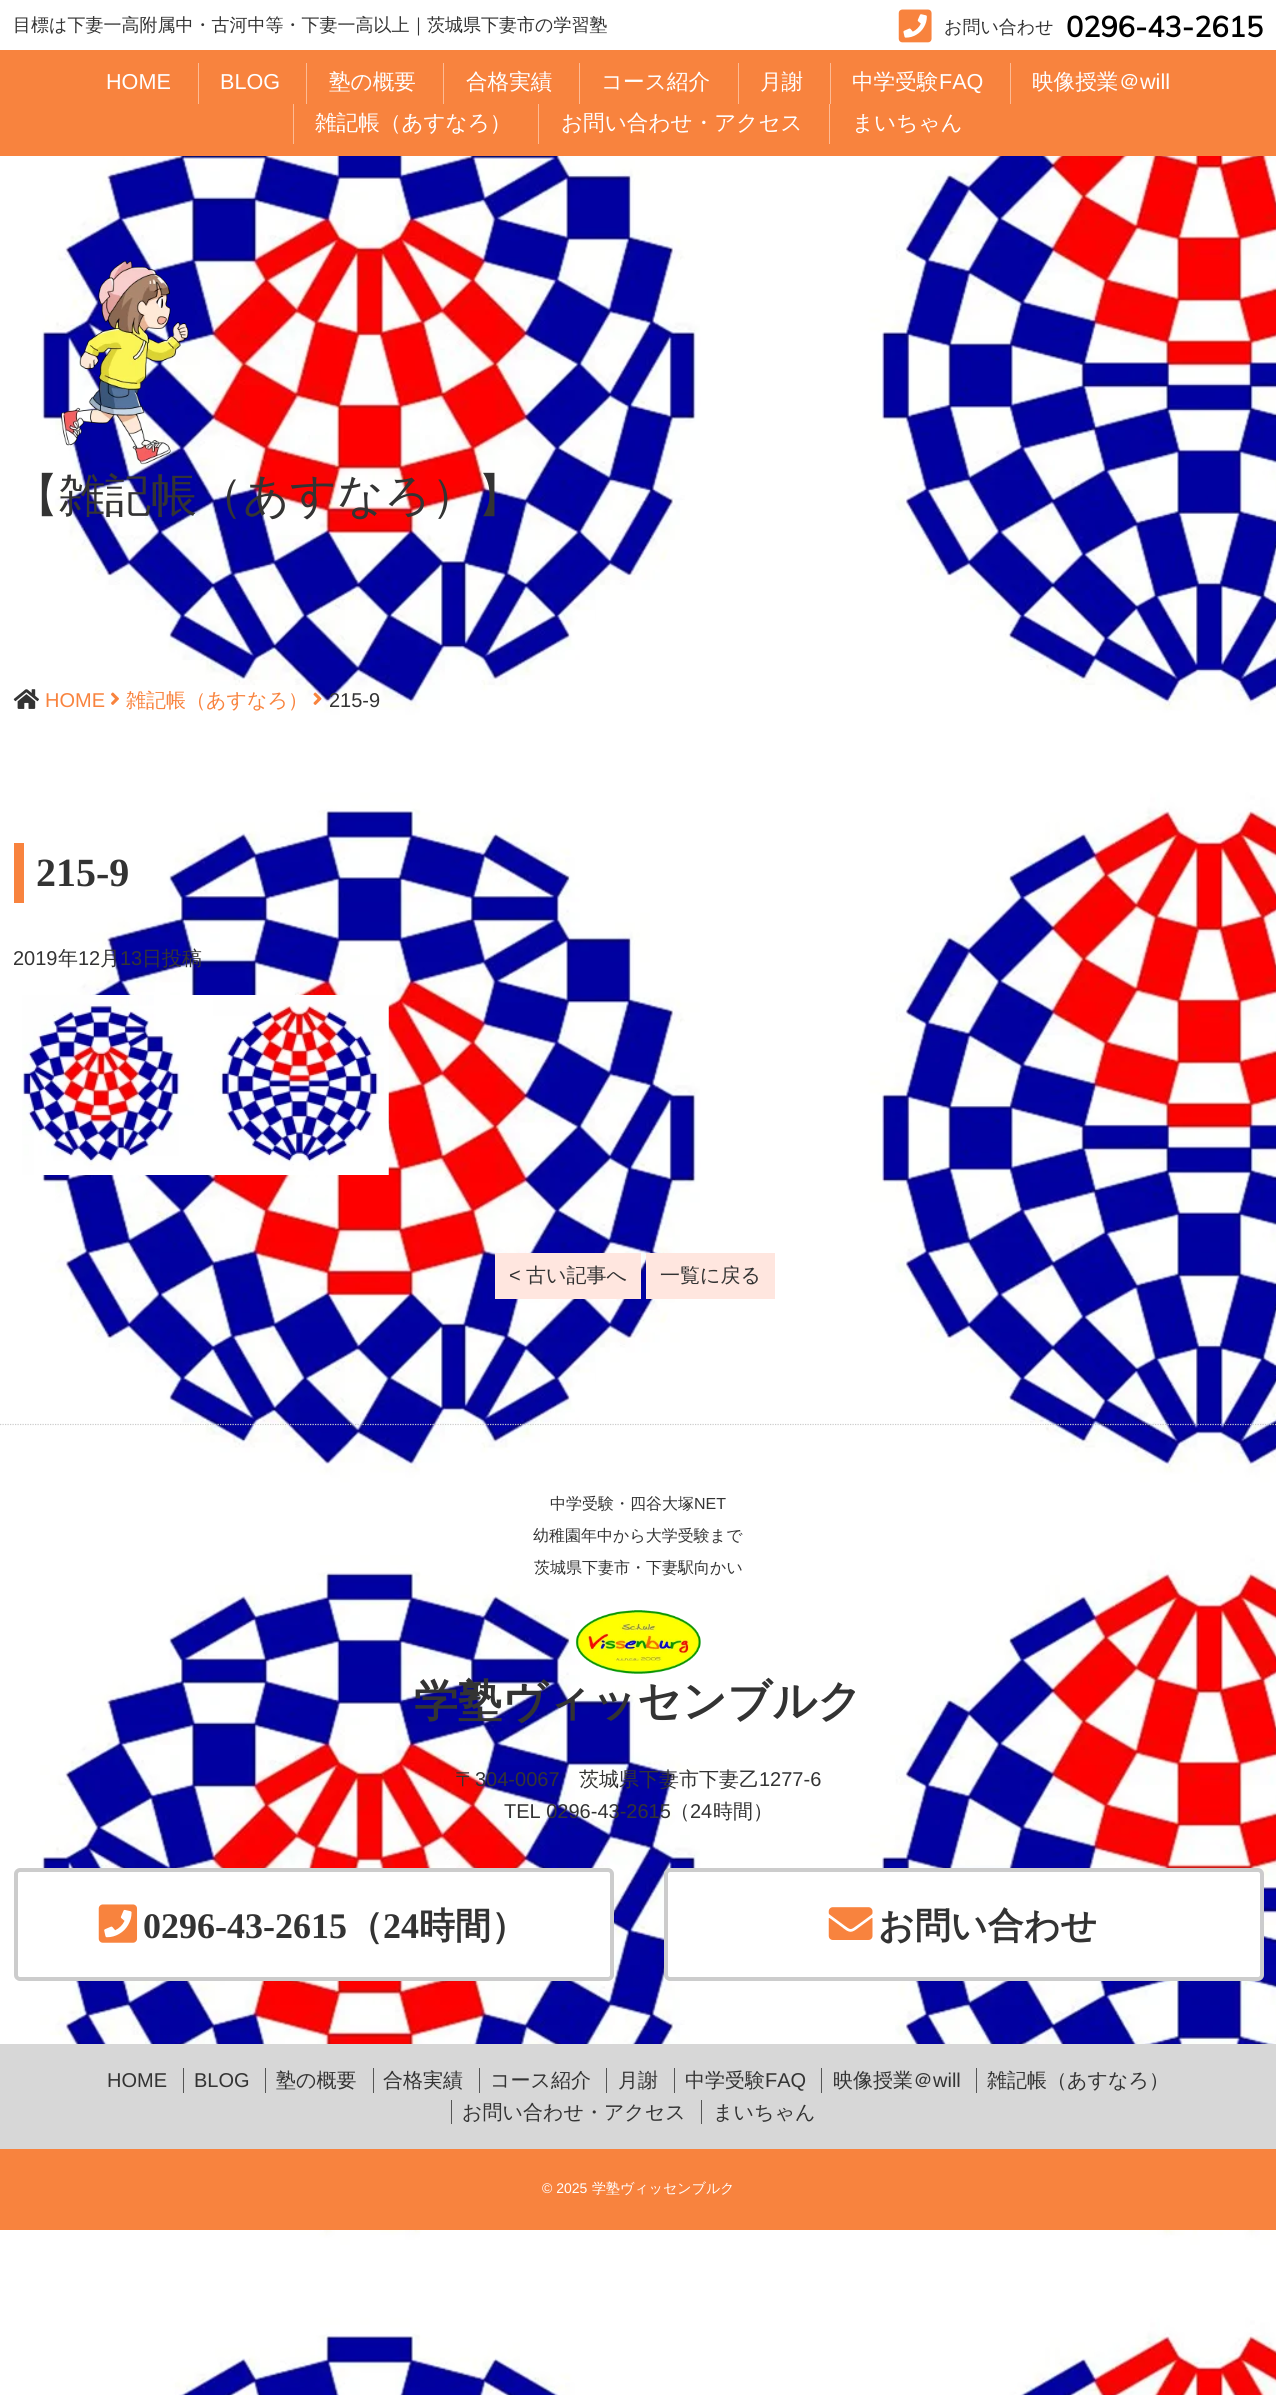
#include <cairo/cairo.h>
#include <math.h>
#include <stddef.h>

static cairo_t *cr;

static void use_color(int r, int g, int b) {
  cairo_set_source_rgb(cr, r / 255.0, g / 255.0, b / 255.0);
}

static void text(double x, double y, const char *s, const char *family, double size, int italic, int bold, int r, int g, int b) {
  cairo_select_font_face(cr, family, italic ? CAIRO_FONT_SLANT_ITALIC : CAIRO_FONT_SLANT_NORMAL,
    bold ? CAIRO_FONT_WEIGHT_BOLD : CAIRO_FONT_WEIGHT_NORMAL);
  cairo_set_font_size(cr, size);
  use_color(r, g, b);
  cairo_move_to(cr, x, y);
  cairo_show_text(cr, s);
}

static void box(double x, double y, double w, double h, int r, int g, int b) {
  use_color(r, g, b);
  cairo_rectangle(cr, x, y, w, h);
  cairo_fill(cr);
}

static void round_rect(double x, double y, double w, double h, double r) {
  cairo_new_sub_path(cr);
  cairo_arc(cr, x + w - r, y + h - r, r, 0, M_PI / 2);
  cairo_arc(cr, x + r, y + h - r, r, M_PI / 2, M_PI);
  cairo_arc(cr, x + r, y + r, r, M_PI, 1.5 * M_PI);
  cairo_arc(cr, x + w - r, y + r, r, 1.5 * M_PI, 2 * M_PI);
  cairo_close_path(cr);
}

static void picture(const char *path, double x, double y, double w, double h) {
  cairo_surface_t *image = cairo_image_surface_create_from_png(path);
  cairo_save(cr);
  cairo_set_source_surface(cr, image, x, y);
  cairo_rectangle(cr, x, y, w, h);
  cairo_fill(cr);
  cairo_restore(cr);
  cairo_surface_destroy(image);
}

static void draw(void) {
  use_color(255, 255, 255);
  cairo_paint(cr);
  picture("img_01.png", 40, 156, 1236, 2239);
  picture("img_02.png", 898, 9, 34, 34);
  box(0, 50, 1276, 106, 248, 131, 62);
  box(198, 63, 1, 41, 253, 187, 149);
  box(306, 63, 1, 41, 253, 187, 149);
  box(443, 63, 1, 41, 253, 187, 149);
  box(579, 63, 1, 41, 253, 187, 149);
  box(738, 63, 1, 41, 253, 187, 149);
  box(830, 63, 1, 41, 253, 187, 149);
  box(1010, 63, 1, 41, 253, 187, 149);
  box(293, 104, 1, 40, 253, 187, 149);
  box(538, 104, 1, 40, 253, 187, 149);
  box(829, 104, 1, 40, 253, 187, 149);
  picture("img_03.png", 61, 260, 128, 205);
  picture("img_04.png", 13, 689, 26, 20);
  picture("img_05.png", 111, 692, 8, 13);
  picture("img_06.png", 313, 692, 9, 13);
  box(14, 843, 10, 60, 248, 131, 62);
  picture("img_07.png", 22, 995, 367, 180);
  box(495, 1253, 146, 46, 255, 230, 223);
  box(646, 1253, 129, 46, 255, 230, 223);
  cairo_new_path(cr);
  cairo_move_to(cr, 0, 1424.5);
  cairo_line_to(cr, 1276, 1424.5);
  use_color(204, 204, 204);
  cairo_set_line_width(cr, 1.2);
  cairo_set_dash(cr, (double[]){1.25, 1.25}, 2, 0);
  cairo_stroke(cr);
  picture("img_08.png", 575, 1610, 126, 64);
  use_color(255, 255, 255);
  round_rect(16, 1870, 596, 109, 4);
  cairo_fill_preserve(cr);
  use_color(204, 204, 204);
  cairo_set_line_width(cr, 4);
  cairo_set_dash(cr, NULL, 0, 0);
  cairo_stroke(cr);
  picture("img_09.png", 98, 1904, 40, 39);
  use_color(255, 255, 255);
  round_rect(666, 1870, 596, 109, 4);
  cairo_fill_preserve(cr);
  use_color(204, 204, 204);
  cairo_stroke(cr);
  picture("img_10.png", 828, 1907, 45, 33);
  box(0, 2044, 1276, 105, 215, 215, 215);
  box(183, 2068, 1, 25, 85, 85, 85);
  box(265, 2068, 1, 25, 85, 85, 85);
  box(373, 2068, 1, 25, 85, 85, 85);
  box(479, 2068, 1, 25, 85, 85, 85);
  box(606, 2068, 1, 25, 85, 85, 85);
  box(674, 2068, 1, 25, 85, 85, 85);
  box(821, 2068, 1, 25, 85, 85, 85);
  box(976, 2068, 1, 25, 85, 85, 85);
  box(451, 2100, 1, 24, 85, 85, 85);
  box(701, 2100, 1, 24, 85, 85, 85);
  box(0, 2149, 1276, 81, 248, 131, 62);
  text(13, 31, "目標は下妻一高附属中・古河中等・下妻一高以上｜茨城県下妻市の学習塾", "WenQuanYi Zen Hei Medium", 18, 0, 0, 51, 51, 51);
  text(944, 33, "お問い合わせ", "WenQuanYi Zen Hei Medium", 18, 0, 0, 51, 51, 51);
  text(1066, 37, "0296-43-2615", "Muli", 28.75, 0, 1, 0, 0, 0);
  text(106, 89, "HOME", "Liberation Sans", 21.6, 0, 0, 255, 255, 255);
  text(220, 89, "BLOG", "Liberation Sans", 21.6, 0, 0, 255, 255, 255);
  text(329, 89, "塾の概要", "WenQuanYi Zen Hei Medium", 21.6, 0, 0, 255, 255, 255);
  text(466, 89, "合格実績", "WenQuanYi Zen Hei Medium", 21.6, 0, 0, 255, 255, 255);
  text(601, 89, "コース紹介", "WenQuanYi Zen Hei Medium", 21.6, 0, 0, 255, 255, 255);
  text(760, 89, "月謝", "WenQuanYi Zen Hei Medium", 21.6, 0, 0, 255, 255, 255);
  text(852, 89, "中学受験", "WenQuanYi Zen Hei Medium", 21.6, 0, 0, 255, 255, 255);
  text(939, 89, "FAQ", "Liberation Sans", 21.6, 0, 0, 255, 255, 255);
  text(1032, 89, "映像授業＠", "WenQuanYi Zen Hei Medium", 21.6, 0, 0, 255, 255, 255);
  text(1140, 89, "will", "Liberation Sans", 21.6, 0, 0, 255, 255, 255);
  text(315, 130, "雑記帳（あすなろ）", "WenQuanYi Zen Hei Medium", 21.6, 0, 0, 255, 255, 255);
  text(561, 130, "お問い合わせ・アクセス", "WenQuanYi Zen Hei Medium", 21.6, 0, 0, 255, 255, 255);
  text(852, 130, "まいちゃん", "WenQuanYi Zen Hei Medium", 21.6, 0, 0, 255, 255, 255);
  text(13, 511, "【雑記帳（あすなろ）】", "WenQuanYi Zen Hei Medium", 46, 0, 0, 51, 51, 51);
  text(45, 707, "HOME", "Liberation Sans", 20, 0, 0, 248, 131, 62);
  text(126, 707, "雑記帳（あすなろ）", "WenQuanYi Zen Hei Medium", 20, 0, 0, 248, 131, 62);
  text(329, 707, "215-9", "Liberation Sans", 20, 0, 0, 51, 51, 51);
  text(36, 886, "215-9", "Liberation Serif", 40, 0, 1, 51, 51, 51);
  text(13, 965, "2019", "Liberation Sans", 20, 0, 0, 51, 51, 51);
  text(58, 965, "年", "WenQuanYi Zen Hei Medium", 20, 0, 0, 51, 51, 51);
  text(78, 965, "12", "Liberation Sans", 20, 0, 0, 51, 51, 51);
  text(100, 965, "月", "WenQuanYi Zen Hei Medium", 20, 0, 0, 51, 51, 51);
  text(120, 965, "13", "Liberation Sans", 20, 0, 0, 51, 51, 51);
  text(142, 965, "日投稿", "WenQuanYi Zen Hei Medium", 20, 0, 0, 51, 51, 51);
  text(509, 1282, "<", "Liberation Sans", 20, 0, 0, 51, 51, 51);
  text(526, 1282, "古い記事へ", "WenQuanYi Zen Hei Medium", 20, 0, 0, 51, 51, 51);
  text(660, 1282, "一覧に戻る", "WenQuanYi Zen Hei Medium", 20, 0, 0, 51, 51, 51);
  text(550, 1509, "中学受験・四谷大塚", "WenQuanYi Zen Hei Medium", 16, 0, 0, 51, 51, 51);
  text(694, 1509, "NET", "Liberation Sans", 16, 0, 0, 51, 51, 51);
  text(533, 1541, "幼稚園年中から大学受験まで", "WenQuanYi Zen Hei Medium", 16, 0, 0, 51, 51, 51);
  text(534, 1573, "茨城県下妻市・下妻駅向かい", "WenQuanYi Zen Hei Medium", 16, 0, 0, 51, 51, 51);
  text(414, 1716, "学塾ヴィッセンブルク", "WenQuanYi Zen Hei", 44, 0, 1, 51, 51, 51);
  text(455, 1786, "〒", "WenQuanYi Zen Hei Medium", 20, 0, 0, 51, 51, 51);
  text(475, 1786, "304-0067", "Liberation Sans", 20, 0, 0, 51, 51, 51);
  text(579, 1786, "茨城県下妻市下妻乙", "WenQuanYi Zen Hei Medium", 20, 0, 0, 51, 51, 51);
  text(759, 1786, "1277-6", "Liberation Sans", 20, 0, 0, 51, 51, 51);
  text(504, 1818, "TEL 0296-43-2615", "Liberation Sans", 20, 0, 0, 51, 51, 51);
  text(670, 1818, "（", "WenQuanYi Zen Hei Medium", 20, 0, 0, 51, 51, 51);
  text(690, 1818, "24", "Liberation Sans", 20, 0, 0, 51, 51, 51);
  text(713, 1818, "時間）", "WenQuanYi Zen Hei Medium", 20, 0, 0, 51, 51, 51);
  text(143, 1938, "0296-43-2615", "Liberation Serif", 36, 0, 1, 51, 51, 51);
  text(347, 1938, "（", "WenQuanYi Zen Hei", 36, 0, 1, 51, 51, 51);
  text(383, 1938, "24", "Liberation Serif", 36, 0, 1, 51, 51, 51);
  text(419, 1938, "時間）", "WenQuanYi Zen Hei", 36, 0, 1, 51, 51, 51);
  text(878, 1938, "お問い合わせ", "WenQuanYi Zen Hei", 36, 0, 1, 51, 51, 51);
  text(107, 2087, "HOME", "Liberation Sans", 20, 0, 0, 51, 51, 51);
  text(194, 2087, "BLOG", "Liberation Sans", 20, 0, 0, 51, 51, 51);
  text(276, 2087, "塾の概要", "WenQuanYi Zen Hei Medium", 20, 0, 0, 51, 51, 51);
  text(383, 2087, "合格実績", "WenQuanYi Zen Hei Medium", 20, 0, 0, 51, 51, 51);
  text(490, 2087, "コース紹介", "WenQuanYi Zen Hei Medium", 20, 0, 0, 51, 51, 51);
  text(618, 2087, "月謝", "WenQuanYi Zen Hei Medium", 20, 0, 0, 51, 51, 51);
  text(685, 2087, "中学受験", "WenQuanYi Zen Hei Medium", 20, 0, 0, 51, 51, 51);
  text(765, 2087, "FAQ", "Liberation Sans", 20, 0, 0, 51, 51, 51);
  text(833, 2087, "映像授業＠", "WenQuanYi Zen Hei Medium", 20, 0, 0, 51, 51, 51);
  text(933, 2087, "will", "Liberation Sans", 20, 0, 0, 51, 51, 51);
  text(987, 2087, "雑記帳（あすなろ）", "WenQuanYi Zen Hei Medium", 20, 0, 0, 51, 51, 51);
  text(462, 2119, "お問い合わせ・アクセス", "WenQuanYi Zen Hei Medium", 20, 0, 0, 51, 51, 51);
  text(713, 2119, "まいちゃん", "WenQuanYi Zen Hei Medium", 20, 0, 0, 51, 51, 51);
  text(542, 2193, "© 2025", "Liberation Sans", 14, 0, 0, 255, 255, 255);
  text(592, 2193, "学塾ヴィッセンブルク", "WenQuanYi Zen Hei Medium", 14, 0, 0, 255, 255, 255);
}

int main(void) {
  cairo_surface_t *surface = cairo_image_surface_create(CAIRO_FORMAT_RGB24, 1276, 2395);
  cr = cairo_create(surface);
  cairo_font_options_t *options = cairo_font_options_create();
  cairo_font_options_set_hint_metrics(options, CAIRO_HINT_METRICS_OFF);
  cairo_font_options_set_hint_style(options, CAIRO_HINT_STYLE_NONE);
  cairo_set_font_options(cr, options);
  cairo_set_miter_limit(cr, 4);
  draw();
  cairo_surface_write_to_png(surface, "out.png");
  cairo_font_options_destroy(options);
  cairo_destroy(cr);
  cairo_surface_destroy(surface);
  return 0;
}
